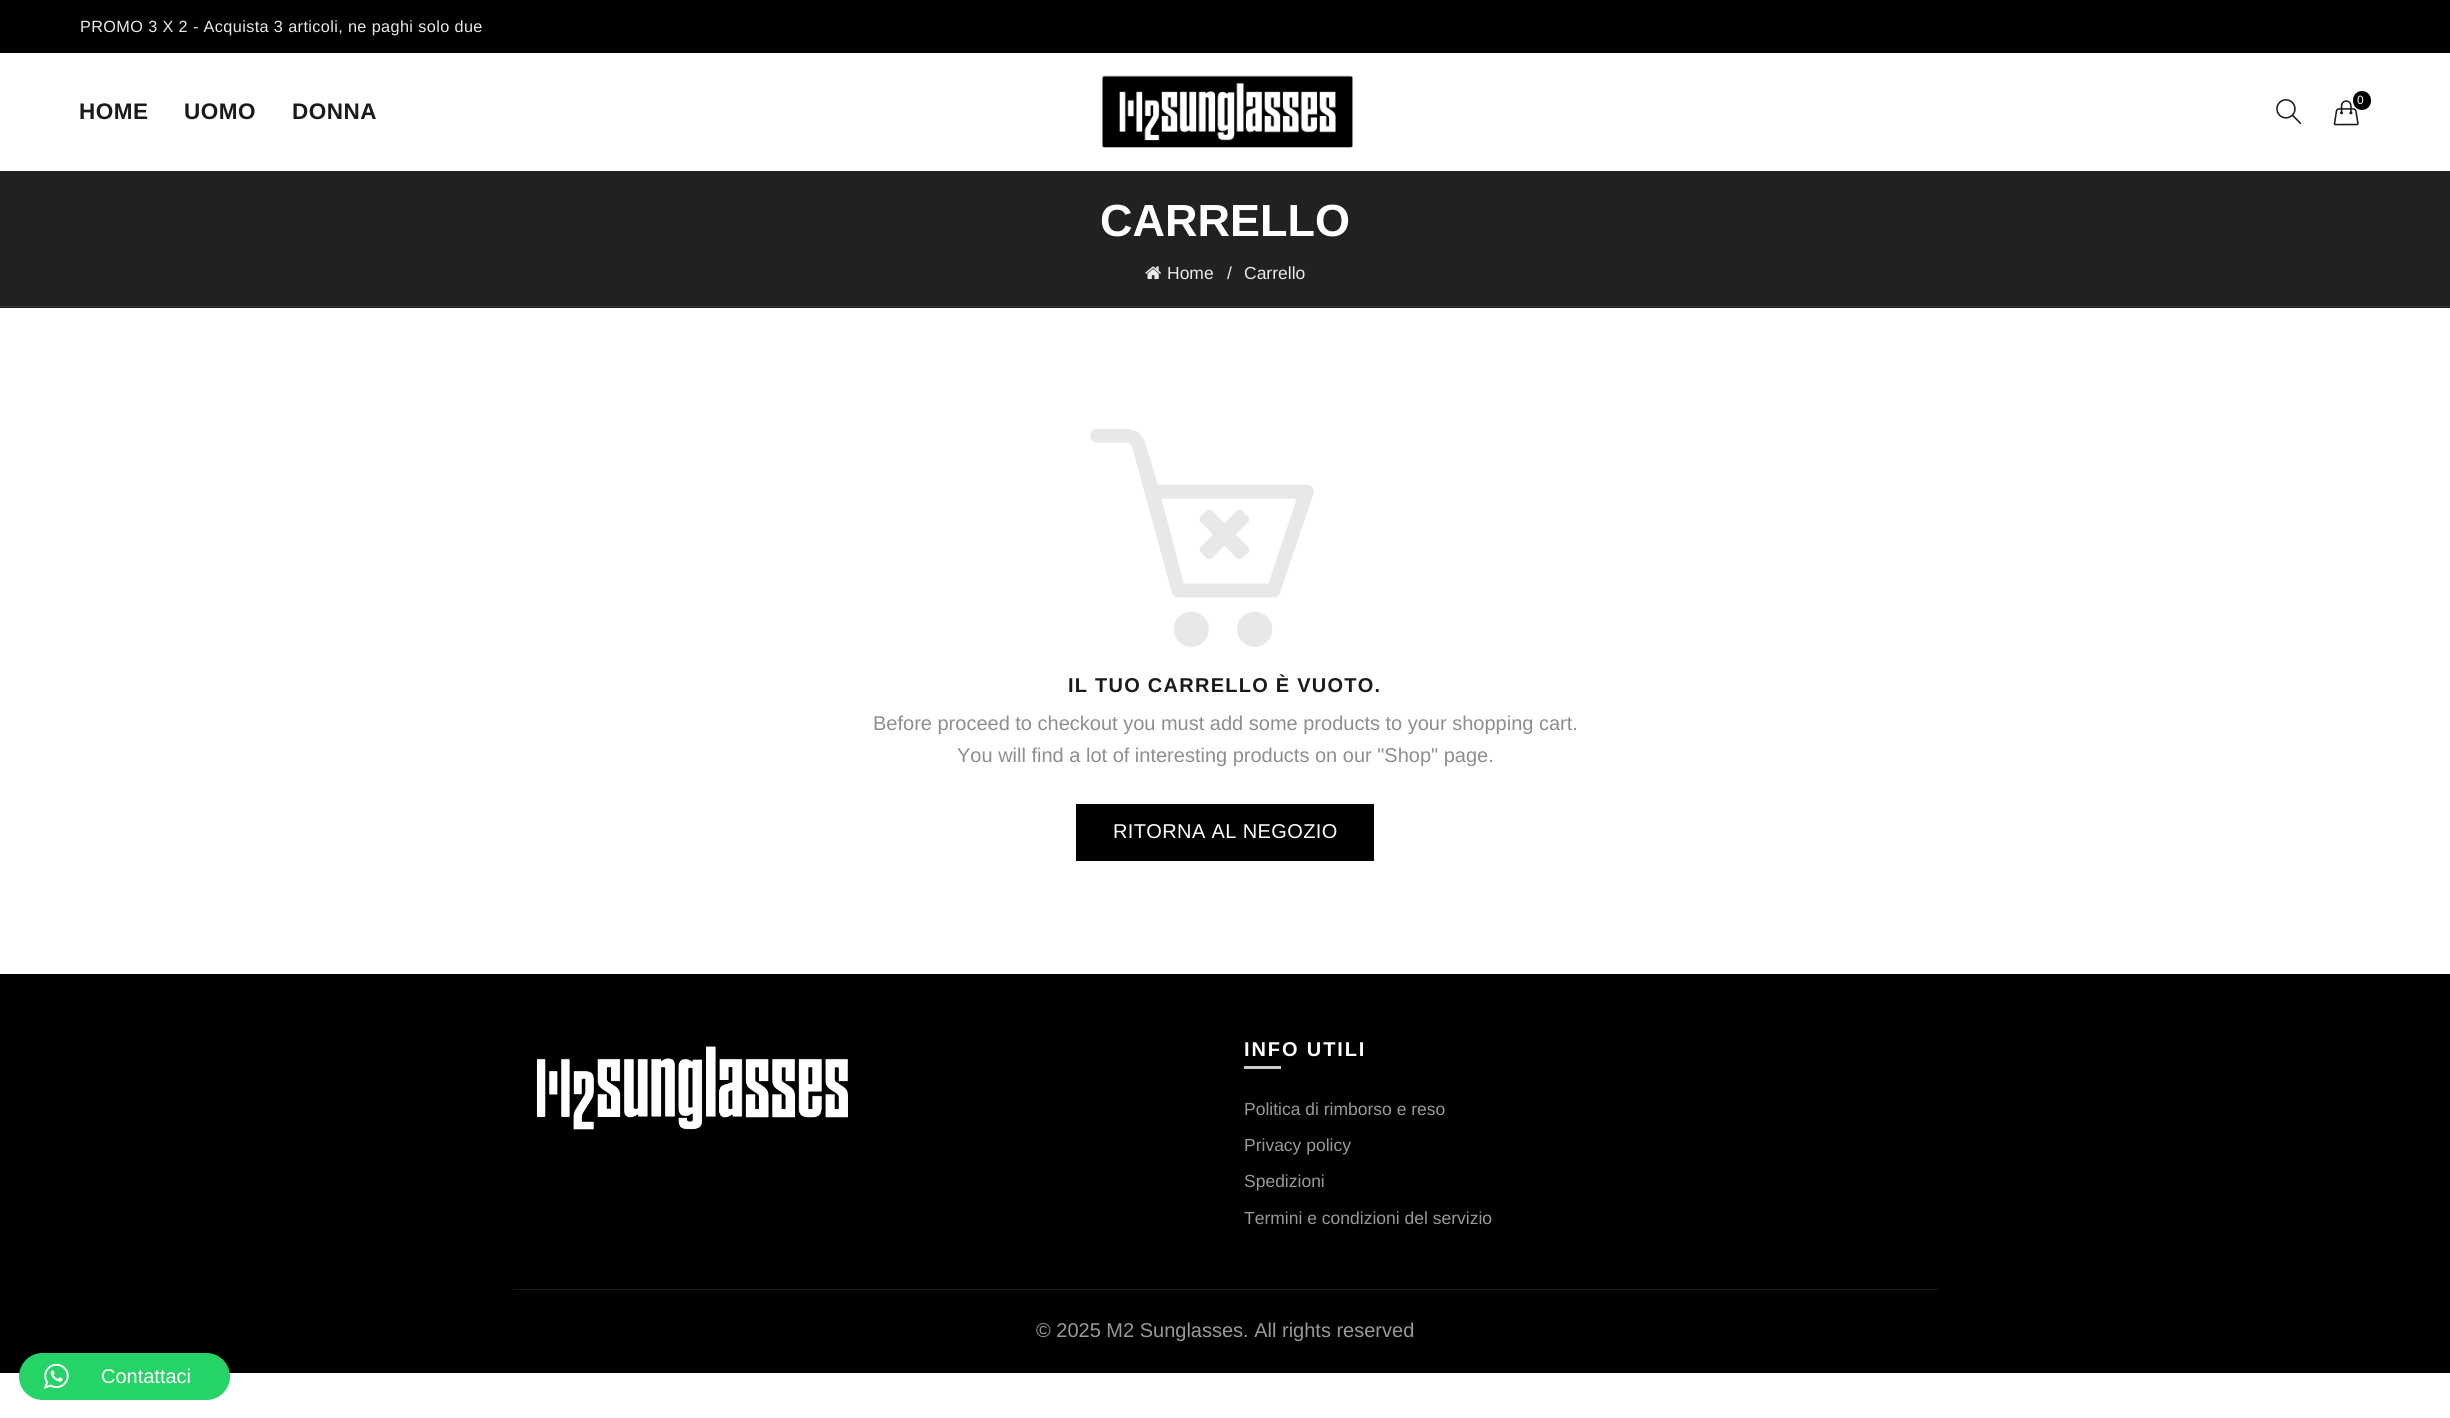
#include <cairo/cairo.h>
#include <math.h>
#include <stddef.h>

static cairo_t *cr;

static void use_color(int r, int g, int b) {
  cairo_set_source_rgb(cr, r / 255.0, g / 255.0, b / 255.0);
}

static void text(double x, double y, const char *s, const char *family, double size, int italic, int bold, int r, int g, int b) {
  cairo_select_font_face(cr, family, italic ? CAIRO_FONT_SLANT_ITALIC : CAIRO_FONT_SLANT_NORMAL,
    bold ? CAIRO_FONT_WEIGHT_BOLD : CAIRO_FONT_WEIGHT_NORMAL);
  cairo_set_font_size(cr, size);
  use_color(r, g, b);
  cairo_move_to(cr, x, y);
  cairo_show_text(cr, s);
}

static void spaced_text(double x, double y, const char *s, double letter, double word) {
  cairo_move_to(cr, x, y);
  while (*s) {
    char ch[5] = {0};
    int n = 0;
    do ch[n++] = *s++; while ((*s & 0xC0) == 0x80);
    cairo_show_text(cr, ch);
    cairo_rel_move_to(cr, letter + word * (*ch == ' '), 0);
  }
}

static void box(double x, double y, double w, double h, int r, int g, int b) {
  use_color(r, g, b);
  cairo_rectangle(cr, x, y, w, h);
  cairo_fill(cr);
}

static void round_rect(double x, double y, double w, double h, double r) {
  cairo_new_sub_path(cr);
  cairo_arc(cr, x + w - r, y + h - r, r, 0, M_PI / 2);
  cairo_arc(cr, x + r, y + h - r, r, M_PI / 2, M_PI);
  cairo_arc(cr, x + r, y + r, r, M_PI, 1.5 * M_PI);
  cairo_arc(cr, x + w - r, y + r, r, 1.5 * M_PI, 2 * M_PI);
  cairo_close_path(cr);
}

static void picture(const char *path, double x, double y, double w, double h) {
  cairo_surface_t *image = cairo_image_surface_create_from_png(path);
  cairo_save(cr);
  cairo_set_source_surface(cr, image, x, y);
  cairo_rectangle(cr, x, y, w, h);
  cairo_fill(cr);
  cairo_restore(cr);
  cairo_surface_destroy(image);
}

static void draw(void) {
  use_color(255, 255, 255);
  cairo_paint(cr);
  box(0, 0, 2450, 53, 0, 0, 0);
  picture("img_01.png", 1102, 75, 252, 73);
  picture("img_02.png", 2276, 99, 26, 25);
  picture("img_03.png", 2333, 100, 26, 26);
  round_rect(2353, 91, 18, 19, 9);
  cairo_fill(cr);
  box(0, 171, 2450, 137, 33, 33, 33);
  box(0, 306, 2450, 1, 53, 53, 53);
  picture("img_04.png", 1145, 266, 16, 13);
  picture("img_05.png", 1090, 428, 224, 219);
  picture("img_06.png", 1199, 509, 51, 51);
  box(1076, 804, 298, 57, 0, 0, 0);
  box(0, 974, 2450, 399, 0, 0, 0);
  picture("img_07.png", 536, 1046, 312, 84);
  box(1244, 1066, 37, 3, 204, 204, 204);
  box(513, 1289, 1425, 1, 26, 26, 26);
  use_color(37, 211, 102);
  round_rect(19, 1353, 211, 47, 23.5);
  cairo_fill(cr);
  picture("img_08.png", 44, 1364, 25, 25);
  cairo_select_font_face(cr, "Liberation Sans", CAIRO_FONT_SLANT_NORMAL, CAIRO_FONT_WEIGHT_NORMAL);
  cairo_set_font_size(cr, 16.25);
  use_color(233, 233, 233);
  spaced_text(80, 32, "PROMO 3 X 2 - Acquista 3 articoli, ne paghi solo due", 0.38, 0);
  text(2357, 104, "0", "Liberation Sans", 12, 0, 0, 255, 255, 255);
  cairo_select_font_face(cr, "Liberation Sans", CAIRO_FONT_SLANT_NORMAL, CAIRO_FONT_WEIGHT_BOLD);
  cairo_set_font_size(cr, 22.5);
  use_color(27, 25, 25);
  spaced_text(79, 119, "HOME", 0.5, 0);
  spaced_text(184, 119, "UOMO", 0.5, 0);
  spaced_text(292, 119, "DONNA", 0.5, 0);
  text(1100, 236, "CARRELLO", "Liberation Sans", 45, 0, 1, 255, 255, 255);
  text(1167, 279, "Home", "Liberation Sans", 17.5, 0, 0, 233, 233, 233);
  text(1227, 279, "/", "Liberation Sans", 17.5, 0, 0, 233, 233, 233);
  text(1244, 279, "Carrello", "Liberation Sans", 17.5, 0, 0, 233, 233, 233);
  cairo_select_font_face(cr, "Liberation Sans", CAIRO_FONT_SLANT_NORMAL, CAIRO_FONT_WEIGHT_BOLD);
  cairo_set_font_size(cr, 20);
  use_color(27, 25, 25);
  spaced_text(1068, 692, "IL TUO CARRELLO È VUOTO.", 1.25, 0);
  text(873, 730, "Before proceed to checkout you must add some products to your shopping cart.", "Liberation Sans", 20, 0, 0, 142, 142, 142);
  text(957, 762, "You will find a lot of interesting products on our \"Shop\" page.", "Liberation Sans", 20, 0, 0, 142, 142, 142);
  use_color(255, 255, 255);
  spaced_text(1113, 838, "RITORNA AL NEGOZIO", 0.38, 0);
  cairo_select_font_face(cr, "Liberation Sans", CAIRO_FONT_SLANT_NORMAL, CAIRO_FONT_WEIGHT_BOLD);
  spaced_text(1244, 1056, "INFO UTILI", 1.9, 0);
  text(1244, 1115, "Politica di rimborso e reso", "Liberation Sans", 17.5, 0, 0, 153, 153, 153);
  text(1244, 1151, "Privacy policy", "Liberation Sans", 17.5, 0, 0, 153, 153, 153);
  text(1244, 1187, "Spedizioni", "Liberation Sans", 17.5, 0, 0, 153, 153, 153);
  text(1244, 1224, "Termini e condizioni del servizio", "Liberation Sans", 17.5, 0, 0, 153, 153, 153);
  text(1036, 1337, "© 2025 M2 Sunglasses. All rights reserved", "Liberation Sans", 20, 0, 0, 153, 153, 153);
  text(101, 1383, "Contattaci", "Liberation Sans", 20, 0, 0, 255, 255, 255);
}

int main(void) {
  cairo_surface_t *surface = cairo_image_surface_create(CAIRO_FORMAT_RGB24, 2450, 1418);
  cr = cairo_create(surface);
  cairo_font_options_t *options = cairo_font_options_create();
  cairo_font_options_set_hint_metrics(options, CAIRO_HINT_METRICS_OFF);
  cairo_font_options_set_hint_style(options, CAIRO_HINT_STYLE_NONE);
  cairo_set_font_options(cr, options);
  cairo_set_miter_limit(cr, 4);
  draw();
  cairo_surface_write_to_png(surface, "out.png");
  cairo_font_options_destroy(options);
  cairo_destroy(cr);
  cairo_surface_destroy(surface);
  return 0;
}
